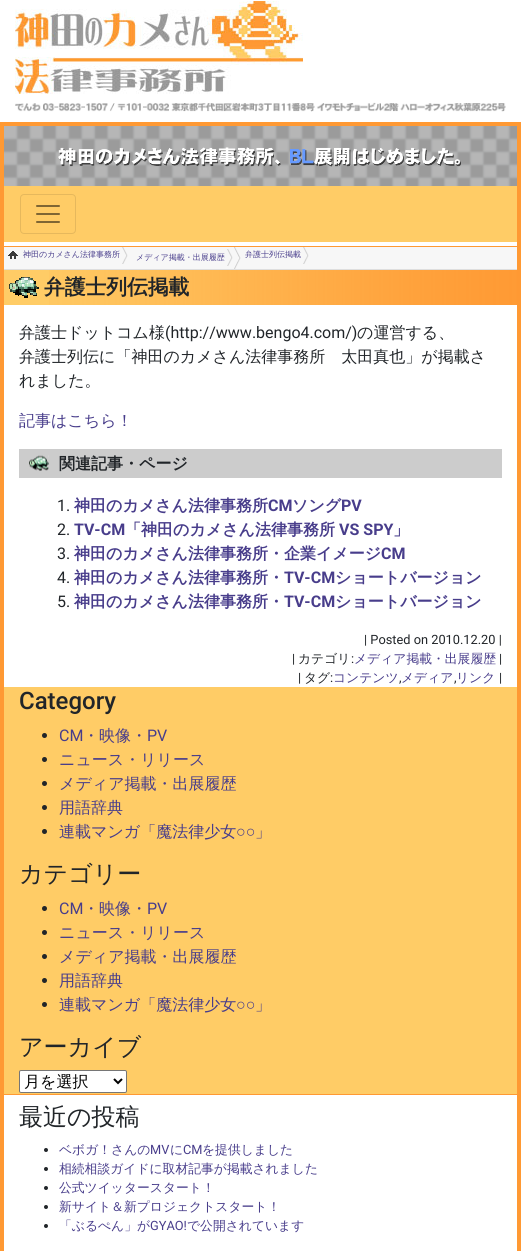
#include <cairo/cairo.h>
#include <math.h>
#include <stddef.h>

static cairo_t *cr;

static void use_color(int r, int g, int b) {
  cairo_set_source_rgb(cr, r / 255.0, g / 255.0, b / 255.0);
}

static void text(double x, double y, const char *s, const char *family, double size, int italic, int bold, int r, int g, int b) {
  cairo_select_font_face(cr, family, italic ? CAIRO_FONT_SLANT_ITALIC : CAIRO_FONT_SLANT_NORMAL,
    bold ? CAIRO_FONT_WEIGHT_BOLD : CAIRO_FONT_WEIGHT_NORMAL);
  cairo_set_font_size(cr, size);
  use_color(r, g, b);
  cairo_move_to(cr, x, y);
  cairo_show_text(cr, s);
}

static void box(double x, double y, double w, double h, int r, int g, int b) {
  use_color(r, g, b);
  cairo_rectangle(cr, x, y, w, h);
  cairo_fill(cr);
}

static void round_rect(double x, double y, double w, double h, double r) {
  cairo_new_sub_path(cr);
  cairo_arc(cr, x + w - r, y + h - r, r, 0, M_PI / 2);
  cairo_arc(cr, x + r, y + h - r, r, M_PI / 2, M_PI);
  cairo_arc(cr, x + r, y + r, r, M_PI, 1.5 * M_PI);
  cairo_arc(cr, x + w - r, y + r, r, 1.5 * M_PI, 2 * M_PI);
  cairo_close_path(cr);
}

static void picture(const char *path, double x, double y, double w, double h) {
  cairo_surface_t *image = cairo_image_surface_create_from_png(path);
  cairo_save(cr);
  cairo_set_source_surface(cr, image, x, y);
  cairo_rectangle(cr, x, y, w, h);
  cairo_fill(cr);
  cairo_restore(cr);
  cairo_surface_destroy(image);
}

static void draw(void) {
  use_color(255, 255, 255);
  cairo_paint(cr);
  picture("img_01.png", 15, 1, 288, 93);
  picture("img_02.png", 15, 102, 491, 10);
  box(0, 122, 521, 4, 255, 153, 51);
  box(517, 122, 4, 972, 255, 153, 51);
  box(0, 246, 521, 1, 255, 153, 51);
  box(0, 122, 4, 972, 255, 153, 51);
  picture("img_03.png", 4, 126, 513, 60);
  box(4, 186, 513, 56, 255, 204, 102);
  round_rect(20.5, 194.5, 55, 39, 3.5);
  use_color(230, 184, 92);
  cairo_set_line_width(cr, 1);
  cairo_stroke(cr);
  picture("img_04.png", 36, 205, 24, 18);
  box(4, 247, 513, 22, 247, 247, 247);
  box(4, 269, 513, 1, 222, 222, 222);
  picture("img_05.png", 122, 247, 6, 17);
  picture("img_06.png", 8, 251, 10, 8);
  picture("img_07.png", 234, 247, 7, 22);
  picture("img_05.png", 227, 249, 6, 17);
  picture("img_05.png", 303, 247, 6, 17);
  box(4, 270, 513, 35, 255, 204, 102);
  picture("img_08.png", 49, 270, 468, 35);
  picture("img_09.png", 9, 277, 30, 21);
  box(19, 449, 483, 29, 204, 204, 204);
  picture("img_10.png", 29, 455, 20, 16);
  box(4, 687, 513, 407, 255, 204, 102);
  use_color(33, 37, 41);
  cairo_arc(cr, 44.5, 735.5, 2.5, 0, 2 * M_PI);
  cairo_fill(cr);
  cairo_arc(cr, 44.5, 759.5, 2.5, 0, 2 * M_PI);
  cairo_fill(cr);
  cairo_arc(cr, 44.5, 783.5, 2.5, 0, 2 * M_PI);
  cairo_fill(cr);
  cairo_arc(cr, 44.5, 807.5, 2.5, 0, 2 * M_PI);
  cairo_fill(cr);
  cairo_arc(cr, 44.5, 831.5, 2.5, 0, 2 * M_PI);
  cairo_fill(cr);
  cairo_arc(cr, 44.5, 908.5, 2.5, 0, 2 * M_PI);
  cairo_fill(cr);
  cairo_arc(cr, 44.5, 932.5, 2.5, 0, 2 * M_PI);
  cairo_fill(cr);
  cairo_arc(cr, 44.5, 956.5, 2.5, 0, 2 * M_PI);
  cairo_fill(cr);
  cairo_arc(cr, 44.5, 980.5, 2.5, 0, 2 * M_PI);
  cairo_fill(cr);
  cairo_arc(cr, 44.5, 1004.5, 2.5, 0, 2 * M_PI);
  cairo_fill(cr);
  use_color(255, 255, 255);
  round_rect(19.5, 1070.5, 107, 22, 1.5);
  cairo_fill_preserve(cr);
  use_color(118, 118, 118);
  cairo_stroke(cr);
  cairo_new_path(cr);
  cairo_move_to(cr, 114, 1079);
  cairo_line_to(cr, 118, 1083);
  cairo_line_to(cr, 122, 1079);
  use_color(0, 0, 0);
  cairo_set_line_width(cr, 2);
  cairo_stroke(cr);
  box(0, 1094, 521, 1, 255, 153, 51);
  box(517, 1094, 4, 157, 255, 153, 51);
  box(0, 1094, 4, 157, 255, 153, 51);
  use_color(33, 37, 41);
  cairo_arc(cr, 46, 1150, 2, 0, 2 * M_PI);
  cairo_fill(cr);
  cairo_arc(cr, 46, 1169, 2, 0, 2 * M_PI);
  cairo_fill(cr);
  cairo_arc(cr, 46, 1188, 2, 0, 2 * M_PI);
  cairo_fill(cr);
  cairo_arc(cr, 46, 1207, 2, 0, 2 * M_PI);
  cairo_fill(cr);
  cairo_arc(cr, 46, 1226, 2, 0, 2 * M_PI);
  cairo_fill(cr);
  text(23, 257, "神田のカメさん法律事務所", "WenQuanYi Zen Hei Medium", 8, 0, 0, 72, 61, 139);
  text(136, 260, "メディア掲載・出展履歴", "WenQuanYi Zen Hei Medium", 8, 0, 0, 72, 61, 139);
  text(245, 257, "弁護士列伝掲載", "WenQuanYi Zen Hei Medium", 8, 0, 0, 72, 61, 139);
  text(44, 294, "弁護士列伝掲載", "WenQuanYi Zen Hei", 20.75, 0, 1, 33, 37, 41);
  text(19, 338, "弁護士ドットコム様", "WenQuanYi Zen Hei Medium", 16, 0, 0, 33, 37, 41);
  text(165, 338, "(http://www.bengo4.com/)", "Roboto", 16, 0, 0, 33, 37, 41);
  text(357, 338, "の運営する、", "WenQuanYi Zen Hei Medium", 16, 0, 0, 33, 37, 41);
  text(19, 362, "弁護士列伝に「神田のカメさん法律事務所　太田真也」が掲載さ", "WenQuanYi Zen Hei Medium", 16, 0, 0, 33, 37, 41);
  text(19, 386, "れました。", "WenQuanYi Zen Hei Medium", 16, 0, 0, 33, 37, 41);
  text(19, 426, "記事はこちら！", "WenQuanYi Zen Hei Medium", 16, 0, 0, 72, 61, 139);
  text(59, 469, "関連記事・ページ", "WenQuanYi Zen Hei", 16, 0, 1, 33, 37, 41);
  text(57, 511, "1.", "Roboto", 16, 0, 0, 33, 37, 41);
  text(74, 511, "神田のカメさん法律事務所", "WenQuanYi Zen Hei", 16, 0, 1, 72, 61, 139);
  text(268, 511, "CM", "Roboto", 16, 0, 1, 72, 61, 139);
  text(292, 511, "ソング", "WenQuanYi Zen Hei", 16, 0, 1, 72, 61, 139);
  text(341, 511, "PV", "Roboto", 16, 0, 1, 72, 61, 139);
  text(57, 535, "2.", "Roboto", 16, 0, 0, 33, 37, 41);
  text(74, 535, "TV-CM", "Roboto", 16, 0, 1, 72, 61, 139);
  text(125, 535, "「神田のカメさん法律事務所", "WenQuanYi Zen Hei", 16, 0, 1, 72, 61, 139);
  text(339, 535, "VS SPY", "Roboto", 16, 0, 1, 72, 61, 139);
  text(393, 535, "」", "WenQuanYi Zen Hei", 16, 0, 1, 72, 61, 139);
  text(57, 559, "3.", "Roboto", 16, 0, 0, 33, 37, 41);
  text(74, 559, "神田のカメさん法律事務所・企業イメージ", "WenQuanYi Zen Hei", 16, 0, 1, 72, 61, 139);
  text(381, 559, "CM", "Roboto", 16, 0, 1, 72, 61, 139);
  text(57, 583, "4.", "Roboto", 16, 0, 0, 33, 37, 41);
  text(74, 583, "神田のカメさん法律事務所・", "WenQuanYi Zen Hei", 16, 0, 1, 72, 61, 139);
  text(284, 583, "TV-CM", "Roboto", 16, 0, 1, 72, 61, 139);
  text(335, 583, "ショートバージョン", "WenQuanYi Zen Hei", 16, 0, 1, 72, 61, 139);
  text(57, 607, "5.", "Roboto", 16, 0, 0, 33, 37, 41);
  text(74, 607, "神田のカメさん法律事務所・", "WenQuanYi Zen Hei", 16, 0, 1, 72, 61, 139);
  text(284, 607, "TV-CM", "Roboto", 16, 0, 1, 72, 61, 139);
  text(335, 607, "ショートバージョン", "WenQuanYi Zen Hei", 16, 0, 1, 72, 61, 139);
  text(364, 644, "| Posted on 2010.12.20 |", "Roboto", 12.8, 0, 0, 33, 37, 41);
  text(292, 663, "|", "Roboto", 12.8, 0, 0, 33, 37, 41);
  text(298, 663, "カテゴリ", "WenQuanYi Zen Hei Medium", 12.8, 0, 0, 33, 37, 41);
  text(351, 663, ":", "Roboto", 12.8, 0, 0, 33, 37, 41);
  text(354, 663, "メディア掲載・出展履歴", "WenQuanYi Zen Hei Medium", 12.8, 0, 0, 72, 61, 139);
  text(499, 663, "|", "Roboto", 12.8, 0, 0, 33, 37, 41);
  text(298, 682, "|", "Roboto", 12.8, 0, 0, 33, 37, 41);
  text(304, 682, "タグ", "WenQuanYi Zen Hei Medium", 12.8, 0, 0, 33, 37, 41);
  text(330, 682, ":", "Roboto", 12.8, 0, 0, 33, 37, 41);
  text(333, 682, "コンテンツ", "WenQuanYi Zen Hei Medium", 12.8, 0, 0, 72, 61, 139);
  text(399, 682, ",", "Roboto", 12.8, 0, 0, 33, 37, 41);
  text(401, 682, "メディア", "WenQuanYi Zen Hei Medium", 12.8, 0, 0, 72, 61, 139);
  text(454, 682, ",", "Roboto", 12.8, 0, 0, 33, 37, 41);
  text(456, 682, "リンク", "WenQuanYi Zen Hei Medium", 12.8, 0, 0, 72, 61, 139);
  text(499, 682, "|", "Roboto", 12.8, 0, 0, 33, 37, 41);
  text(19, 709, "Category", "Roboto Medium", 24, 0, 0, 33, 37, 41);
  text(59, 741, "CM", "Roboto", 16, 0, 0, 72, 61, 139);
  text(83, 741, "・映像・", "WenQuanYi Zen Hei Medium", 16, 0, 0, 72, 61, 139);
  text(147, 741, "PV", "Roboto", 16, 0, 0, 72, 61, 139);
  text(59, 765, "ニュース・リリース", "WenQuanYi Zen Hei Medium", 16, 0, 0, 72, 61, 139);
  text(59, 789, "メディア掲載・出展履歴", "WenQuanYi Zen Hei Medium", 16, 0, 0, 72, 61, 139);
  text(59, 813, "用語辞典", "WenQuanYi Zen Hei Medium", 16, 0, 0, 72, 61, 139);
  text(59, 837, "連載マンガ「魔法律少女", "WenQuanYi Zen Hei Medium", 16, 0, 0, 72, 61, 139);
  text(236, 837, "○○", "Liberation Sans", 16, 0, 0, 72, 61, 139);
  text(255, 837, "」", "WenQuanYi Zen Hei Medium", 16, 0, 0, 72, 61, 139);
  text(19, 882, "カテゴリー", "WenQuanYi Zen Hei Medium", 24, 0, 0, 33, 37, 41);
  text(59, 914, "CM", "Roboto", 16, 0, 0, 72, 61, 139);
  text(83, 914, "・映像・", "WenQuanYi Zen Hei Medium", 16, 0, 0, 72, 61, 139);
  text(147, 914, "PV", "Roboto", 16, 0, 0, 72, 61, 139);
  text(59, 938, "ニュース・リリース", "WenQuanYi Zen Hei Medium", 16, 0, 0, 72, 61, 139);
  text(59, 962, "メディア掲載・出展履歴", "WenQuanYi Zen Hei Medium", 16, 0, 0, 72, 61, 139);
  text(59, 986, "用語辞典", "WenQuanYi Zen Hei Medium", 16, 0, 0, 72, 61, 139);
  text(59, 1010, "連載マンガ「魔法律少女", "WenQuanYi Zen Hei Medium", 16, 0, 0, 72, 61, 139);
  text(236, 1010, "○○", "Liberation Sans", 16, 0, 0, 72, 61, 139);
  text(255, 1010, "」", "WenQuanYi Zen Hei Medium", 16, 0, 0, 72, 61, 139);
  text(19, 1055, "アーカイブ", "WenQuanYi Zen Hei Medium", 24, 0, 0, 33, 37, 41);
  text(24, 1087, "月を選択", "WenQuanYi Zen Hei Medium", 16, 0, 0, 0, 0, 0);
  text(19, 1125, "最近の投稿", "WenQuanYi Zen Hei Medium", 24, 0, 0, 33, 37, 41);
  text(59, 1154, "ベボガ！さんの", "WenQuanYi Zen Hei Medium", 12.8, 0, 0, 72, 61, 139);
  text(150, 1154, "MV", "Roboto", 12.8, 0, 0, 72, 61, 139);
  text(170, 1154, "に", "WenQuanYi Zen Hei Medium", 12.8, 0, 0, 72, 61, 139);
  text(183, 1154, "CM", "Roboto", 12.8, 0, 0, 72, 61, 139);
  text(202, 1154, "を提供しました", "WenQuanYi Zen Hei Medium", 12.8, 0, 0, 72, 61, 139);
  text(59, 1173, "相続相談ガイドに取材記事が掲載されました", "WenQuanYi Zen Hei Medium", 12.8, 0, 0, 72, 61, 139);
  text(59, 1192, "公式ツイッタースタート！", "WenQuanYi Zen Hei Medium", 12.8, 0, 0, 72, 61, 139);
  text(59, 1211, "新サイト＆新プロジェクトスタート！", "WenQuanYi Zen Hei Medium", 12.8, 0, 0, 72, 61, 139);
  text(59, 1230, "「ぶるぺん」が", "WenQuanYi Zen Hei Medium", 12.8, 0, 0, 72, 61, 139);
  text(150, 1230, "GYAO!", "Roboto", 12.8, 0, 0, 72, 61, 139);
  text(187, 1230, "で公開されています", "WenQuanYi Zen Hei Medium", 12.8, 0, 0, 72, 61, 139);
}

int main(void) {
  cairo_surface_t *surface = cairo_image_surface_create(CAIRO_FORMAT_RGB24, 521, 1251);
  cr = cairo_create(surface);
  cairo_font_options_t *options = cairo_font_options_create();
  cairo_font_options_set_hint_metrics(options, CAIRO_HINT_METRICS_OFF);
  cairo_font_options_set_hint_style(options, CAIRO_HINT_STYLE_NONE);
  cairo_set_font_options(cr, options);
  cairo_set_miter_limit(cr, 4);
  draw();
  cairo_surface_write_to_png(surface, "out.png");
  cairo_font_options_destroy(options);
  cairo_destroy(cr);
  cairo_surface_destroy(surface);
  return 0;
}
